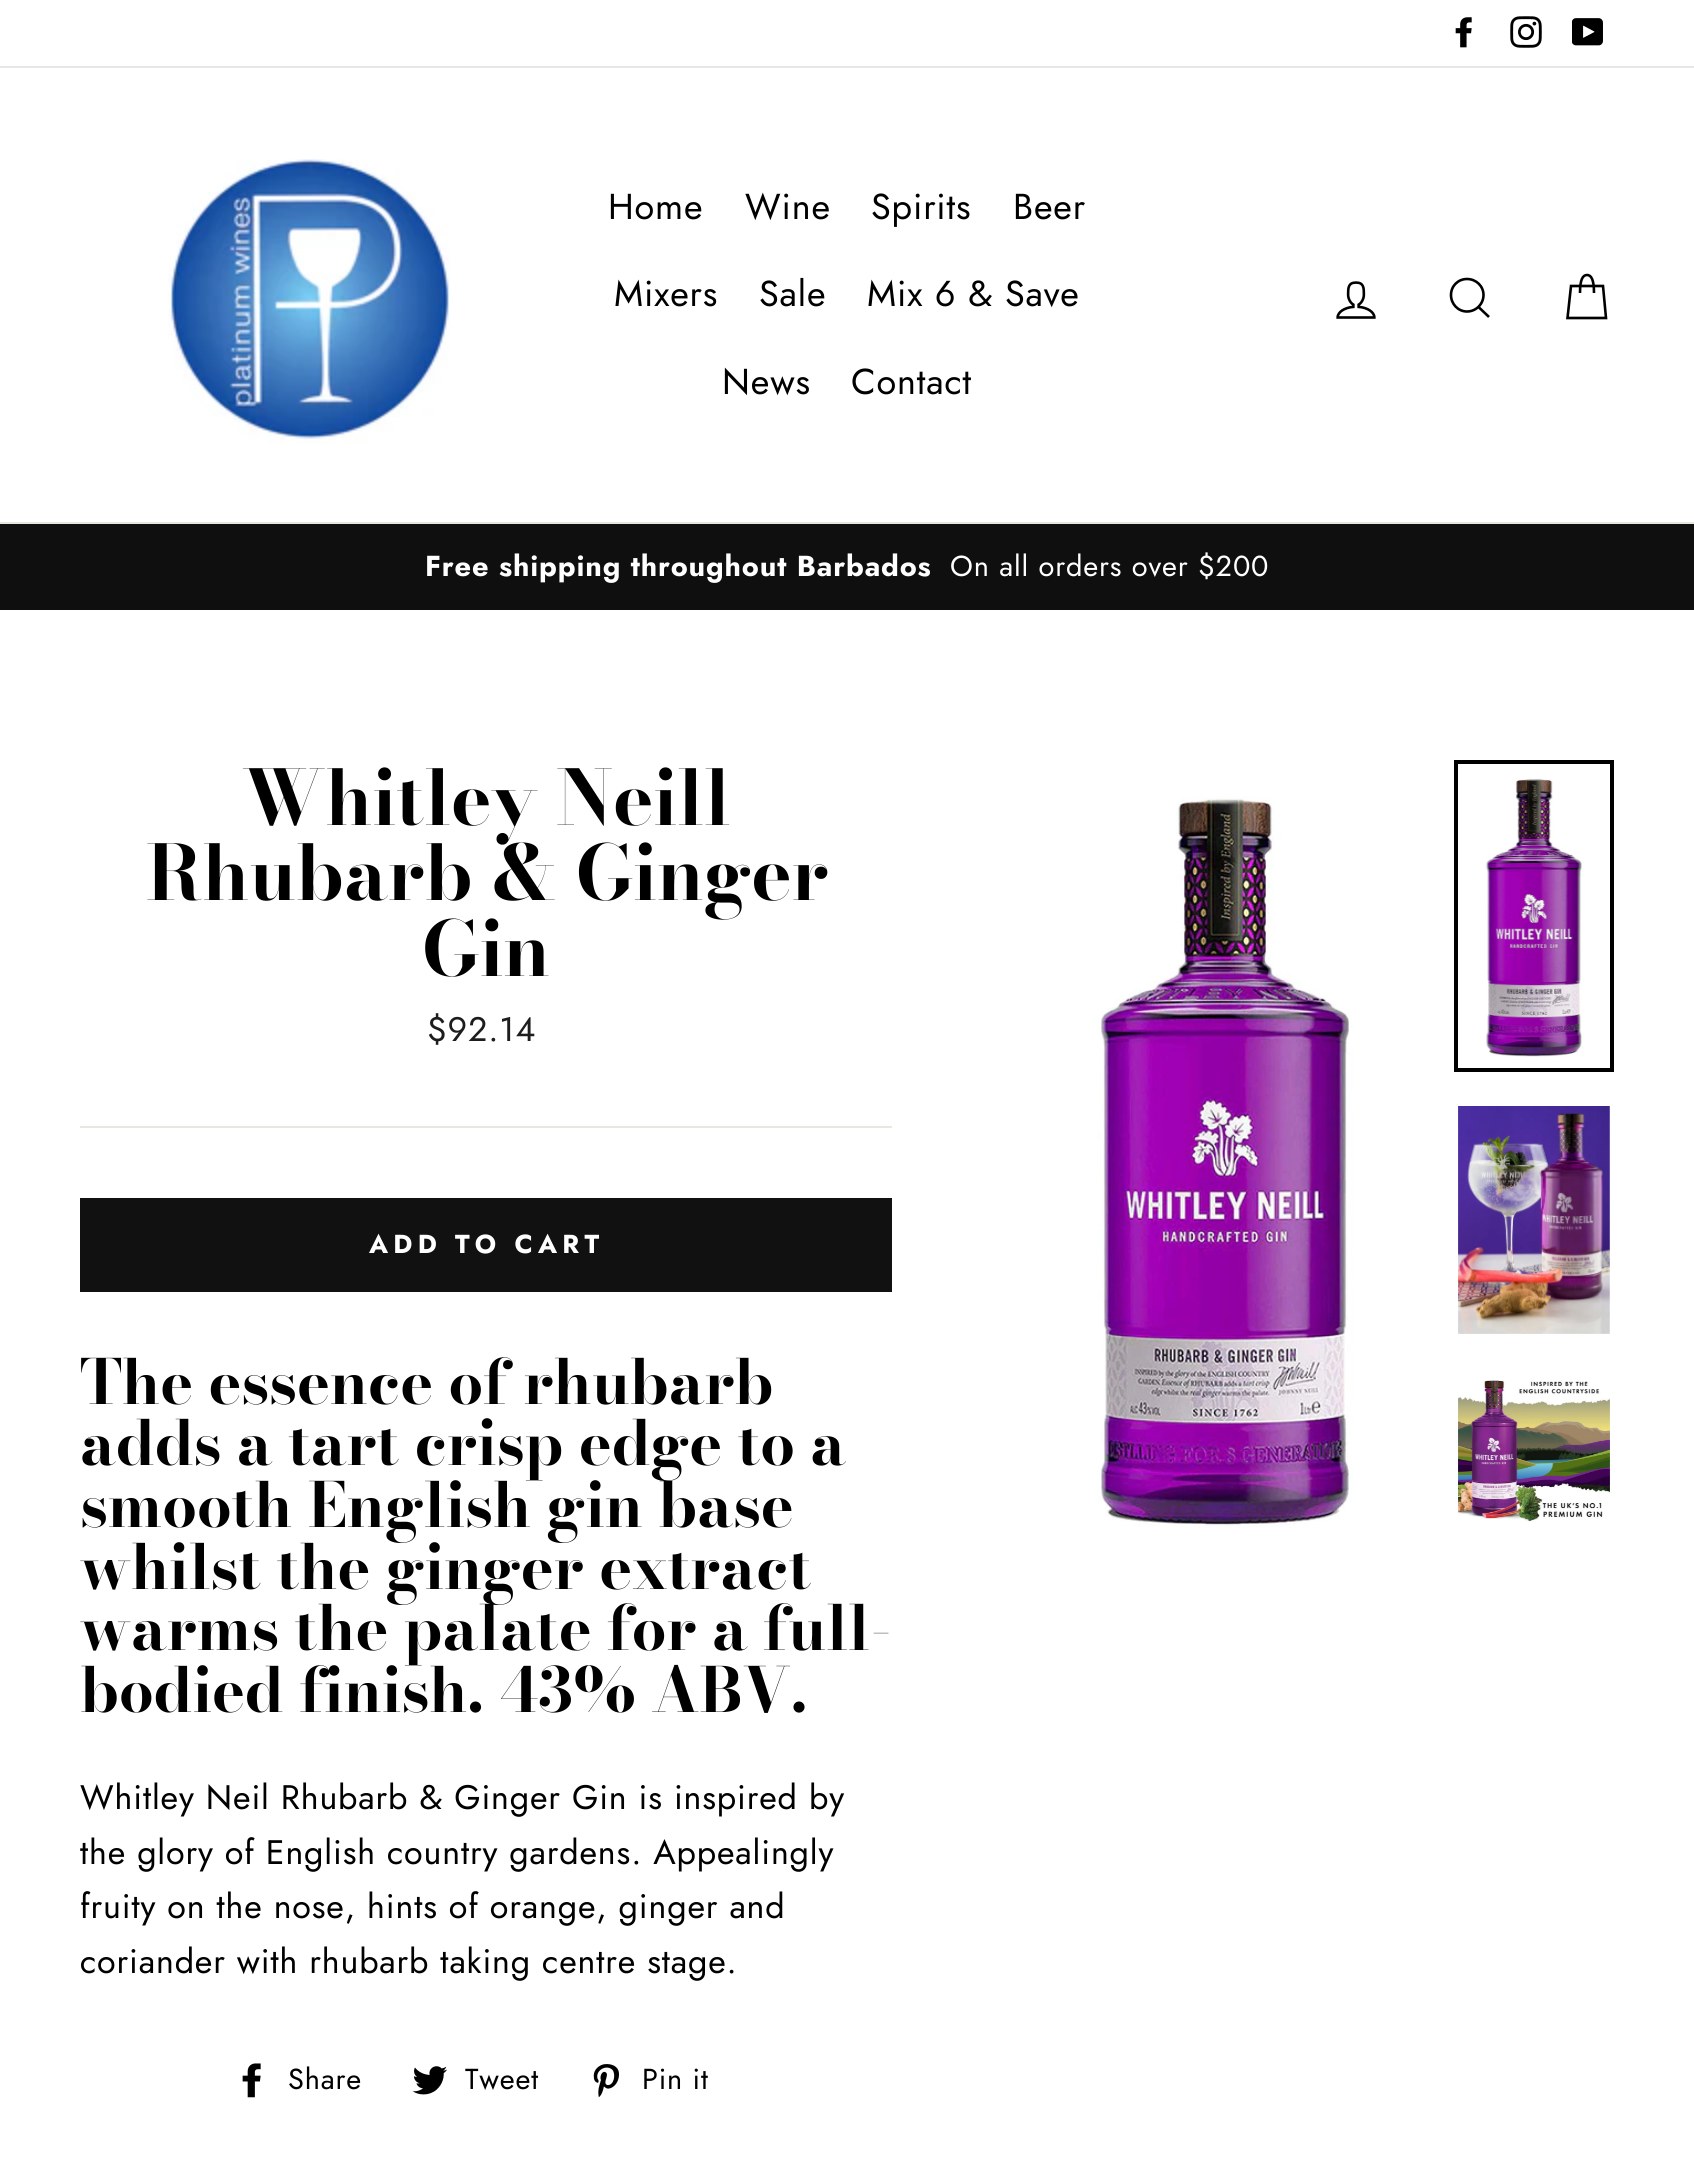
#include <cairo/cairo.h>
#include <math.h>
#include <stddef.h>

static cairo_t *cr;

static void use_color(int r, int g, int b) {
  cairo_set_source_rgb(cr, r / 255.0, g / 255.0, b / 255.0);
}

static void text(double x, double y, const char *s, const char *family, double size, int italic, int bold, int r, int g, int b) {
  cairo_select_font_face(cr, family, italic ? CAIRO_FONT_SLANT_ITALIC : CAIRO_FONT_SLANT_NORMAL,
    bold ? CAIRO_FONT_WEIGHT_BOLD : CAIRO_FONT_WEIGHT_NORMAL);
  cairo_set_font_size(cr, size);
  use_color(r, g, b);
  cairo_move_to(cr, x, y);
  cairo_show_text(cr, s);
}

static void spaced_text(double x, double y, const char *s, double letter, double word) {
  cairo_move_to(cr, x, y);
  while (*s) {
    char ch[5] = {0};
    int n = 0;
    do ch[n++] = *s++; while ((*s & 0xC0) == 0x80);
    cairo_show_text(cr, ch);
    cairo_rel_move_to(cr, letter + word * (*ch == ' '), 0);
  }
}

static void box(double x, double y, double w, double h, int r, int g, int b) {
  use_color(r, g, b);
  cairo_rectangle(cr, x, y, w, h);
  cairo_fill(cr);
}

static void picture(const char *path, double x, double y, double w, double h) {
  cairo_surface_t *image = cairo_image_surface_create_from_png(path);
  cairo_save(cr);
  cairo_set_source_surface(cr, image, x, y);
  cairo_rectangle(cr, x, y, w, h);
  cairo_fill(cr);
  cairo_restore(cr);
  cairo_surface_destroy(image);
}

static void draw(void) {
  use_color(255, 255, 255);
  cairo_paint(cr);
  picture("img_01.png", 1455, 17, 17, 31);
  picture("img_02.png", 1510, 16, 32, 32);
  picture("img_03.png", 1572, 18, 31, 28);
  box(0, 66, 1694, 2, 230, 230, 230);
  box(0, 522, 1694, 2, 232, 232, 225);
  picture("img_04.png", 168, 159, 282, 285);
  picture("img_05.png", 1336, 281, 40, 38);
  cairo_new_path(cr);
  cairo_move_to(cr, 1483.5, 295);
  cairo_curve_to(cr, 1483.5, 304, 1476, 311.5, 1467, 311.5);
  cairo_curve_to(cr, 1458, 311.5, 1451, 304, 1451, 295);
  cairo_curve_to(cr, 1451, 286, 1458, 279, 1467, 279);
  cairo_curve_to(cr, 1476, 279, 1483.5, 286, 1483.5, 295);
  cairo_close_path(cr);
  cairo_move_to(cr, 1489, 317);
  cairo_line_to(cr, 1478.5, 307);
  use_color(0, 0, 0);
  cairo_set_line_width(cr, 2.6);
  cairo_stroke(cr);
  cairo_new_path(cr);
  cairo_move_to(cr, 1580, 293);
  cairo_curve_to(cr, 1580, 279, 1583, 275, 1587, 275);
  cairo_curve_to(cr, 1591, 275, 1594, 279, 1594, 293);
  cairo_move_to(cr, 1571, 286);
  cairo_line_to(cr, 1603, 286);
  cairo_line_to(cr, 1606, 318);
  cairo_line_to(cr, 1567.5, 318);
  cairo_close_path(cr);
  cairo_stroke(cr);
  box(0, 524, 1694, 86, 15, 15, 15);
  box(80, 1126, 812, 2, 232, 232, 225);
  box(80, 1198, 812, 94, 17, 17, 17);
  picture("img_06.png", 242, 2063, 19, 35);
  picture("img_07.png", 412, 2066, 35, 29);
  picture("img_08.png", 593, 2064, 26, 34);
  picture("img_09.png", 1097, 796, 256, 733);
  cairo_rectangle(cr, 1456, 762, 156, 308);
  use_color(0, 0, 0);
  cairo_set_line_width(cr, 4);
  cairo_stroke(cr);
  picture("img_10.png", 1485, 778, 97, 280);
  picture("img_11.png", 1458, 1106, 152, 228);
  picture("img_12.png", 1458, 1380, 152, 142);
  cairo_select_font_face(cr, "Jost", CAIRO_FONT_SLANT_NORMAL, CAIRO_FONT_WEIGHT_NORMAL);
  cairo_set_font_size(cr, 36);
  spaced_text(608, 219, "Home", 0.85, 0);
  spaced_text(745, 219, "Wine", 0.85, 0);
  spaced_text(871, 219, "Spirits", 0.85, 0);
  spaced_text(1013, 219, "Beer", 0.85, 0);
  spaced_text(614, 306, "Mixers", 0.85, 0);
  spaced_text(759, 306, "Sale", 0.85, 0);
  spaced_text(867, 306, "Mix 6 & Save", 0.85, 0);
  spaced_text(722, 394, "News", 0.85, 0);
  spaced_text(851, 394, "Contact", 0.85, 0);
  cairo_select_font_face(cr, "Jost", CAIRO_FONT_SLANT_NORMAL, CAIRO_FONT_WEIGHT_BOLD);
  cairo_set_font_size(cr, 28.9);
  use_color(255, 255, 255);
  spaced_text(425, 576, "Free shipping throughout Barbados", 0.85, 0);
  cairo_select_font_face(cr, "Jost", CAIRO_FONT_SLANT_NORMAL, CAIRO_FONT_WEIGHT_NORMAL);
  spaced_text(950, 576, "On all orders over $200", 0.85, 0);
  text(242, 825, "Whitley Neill", "Bodoni Moda", 75.75, 0, 1, 0, 0, 0);
  text(146, 900, "Rhubarb & Ginger", "Bodoni Moda", 75.75, 0, 1, 0, 0, 0);
  text(422, 976, "Gin", "Bodoni Moda", 75.75, 0, 1, 0, 0, 0);
  cairo_select_font_face(cr, "Jost", CAIRO_FONT_SLANT_NORMAL, CAIRO_FONT_WEIGHT_NORMAL);
  cairo_set_font_size(cr, 34);
  use_color(28, 29, 29);
  spaced_text(427, 1041, "$92.14", 0.85, 0);
  cairo_select_font_face(cr, "Jost", CAIRO_FONT_SLANT_NORMAL, CAIRO_FONT_WEIGHT_BOLD);
  cairo_set_font_size(cr, 26);
  use_color(255, 255, 255);
  spaced_text(369, 1253, "ADD TO CART", 5.25, 0);
  text(80, 1404, "The essence of rhubarb", "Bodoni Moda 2", 61.6, 0, 1, 0, 0, 0);
  text(80, 1465, "adds a tart crisp edge to a", "Bodoni Moda 2", 61.6, 0, 1, 0, 0, 0);
  text(80, 1527, "smooth English gin base", "Bodoni Moda 2", 61.6, 0, 1, 0, 0, 0);
  text(80, 1589, "whilst the ginger extract", "Bodoni Moda 2", 61.6, 0, 1, 0, 0, 0);
  text(80, 1650, "warms the palate for a full-", "Bodoni Moda 2", 61.6, 0, 1, 0, 0, 0);
  text(80, 1712, "bodied finish. 43%", "Bodoni Moda 2", 61.6, 0, 1, 0, 0, 0);
  text(651, 1712, "ABV.", "Bodoni Moda 2", 61.6, 0, 1, 0, 0, 0);
  cairo_select_font_face(cr, "Jost", CAIRO_FONT_SLANT_NORMAL, CAIRO_FONT_WEIGHT_NORMAL);
  cairo_set_font_size(cr, 34);
  spaced_text(80, 1809, "Whitley Neil Rhubarb & Ginger Gin is inspired by", 0.85, 0);
  spaced_text(80, 1864, "the glory of English country gardens. Appealingly", 0.85, 0);
  spaced_text(80, 1918, "fruity on the nose, hints of orange, ginger and", 0.85, 0);
  spaced_text(80, 1973, "coriander with rhubarb taking centre stage.", 0.85, 0);
  cairo_set_font_size(cr, 28.9);
  spaced_text(288, 2089, "Share", 0.85, 0);
  spaced_text(465, 2089, "Tweet", 0.85, 0);
  spaced_text(642, 2089, "Pin it", 0.85, 0);
}

int main(void) {
  cairo_surface_t *surface = cairo_image_surface_create(CAIRO_FORMAT_RGB24, 1694, 2170);
  cr = cairo_create(surface);
  cairo_font_options_t *options = cairo_font_options_create();
  cairo_font_options_set_hint_metrics(options, CAIRO_HINT_METRICS_OFF);
  cairo_font_options_set_hint_style(options, CAIRO_HINT_STYLE_NONE);
  cairo_set_font_options(cr, options);
  cairo_set_miter_limit(cr, 4);
  draw();
  cairo_surface_write_to_png(surface, "out.png");
  cairo_font_options_destroy(options);
  cairo_destroy(cr);
  cairo_surface_destroy(surface);
  return 0;
}
